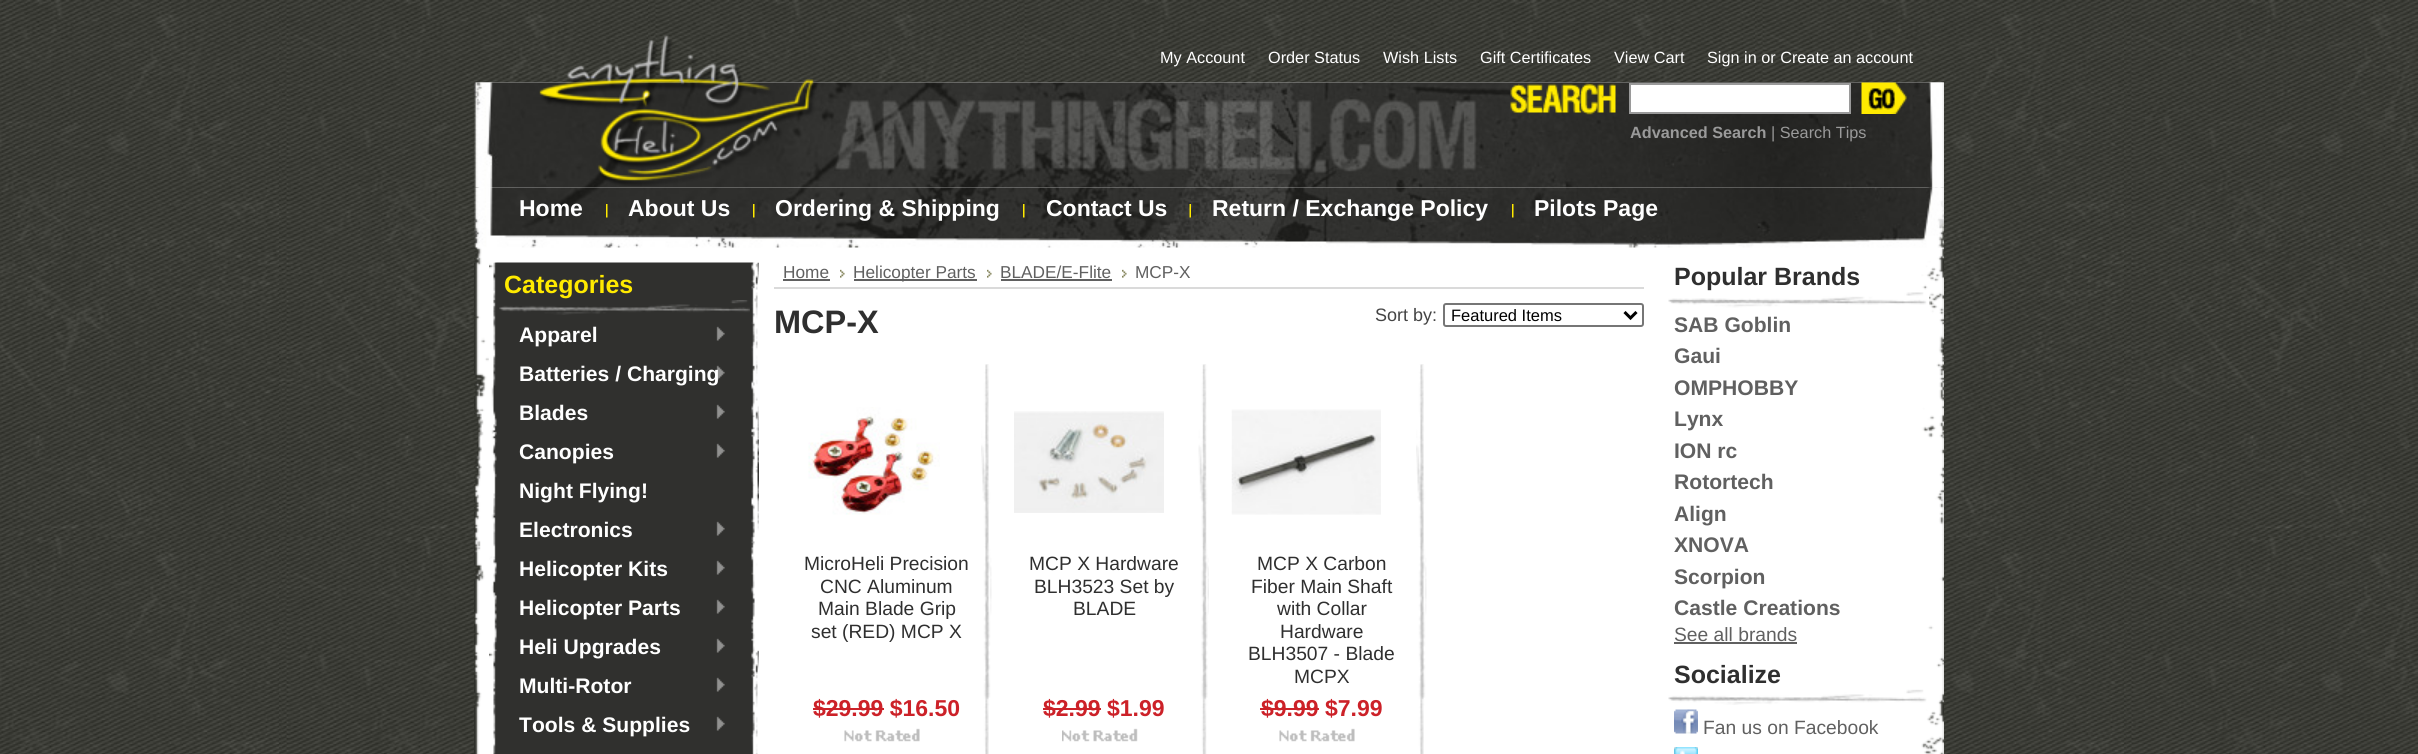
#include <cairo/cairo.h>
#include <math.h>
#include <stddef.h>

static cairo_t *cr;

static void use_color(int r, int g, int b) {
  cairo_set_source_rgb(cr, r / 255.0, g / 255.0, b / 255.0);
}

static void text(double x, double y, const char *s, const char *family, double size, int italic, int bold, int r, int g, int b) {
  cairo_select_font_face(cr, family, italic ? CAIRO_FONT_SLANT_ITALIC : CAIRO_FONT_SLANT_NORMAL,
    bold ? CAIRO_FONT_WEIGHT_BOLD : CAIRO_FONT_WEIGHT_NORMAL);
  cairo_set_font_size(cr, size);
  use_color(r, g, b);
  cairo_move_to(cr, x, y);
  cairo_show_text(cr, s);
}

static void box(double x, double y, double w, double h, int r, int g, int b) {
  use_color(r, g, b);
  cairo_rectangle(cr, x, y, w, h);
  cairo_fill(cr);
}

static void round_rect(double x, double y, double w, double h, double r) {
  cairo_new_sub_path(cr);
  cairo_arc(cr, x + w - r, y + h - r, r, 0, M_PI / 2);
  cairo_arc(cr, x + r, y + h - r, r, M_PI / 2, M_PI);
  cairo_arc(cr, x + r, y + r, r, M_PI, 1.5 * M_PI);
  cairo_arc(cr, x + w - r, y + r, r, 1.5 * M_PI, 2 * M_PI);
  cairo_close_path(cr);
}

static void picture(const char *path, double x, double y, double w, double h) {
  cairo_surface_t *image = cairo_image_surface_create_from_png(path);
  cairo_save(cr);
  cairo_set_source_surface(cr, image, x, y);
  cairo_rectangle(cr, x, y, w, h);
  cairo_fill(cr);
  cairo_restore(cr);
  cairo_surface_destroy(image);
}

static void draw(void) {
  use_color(255, 255, 255);
  cairo_paint(cr);
  picture("img_01.png", 0, 0, 2418, 754);
  picture("img_02.png", 474, 82, 1470, 672);
  picture("img_03.png", 474, 82, 1470, 106);
  picture("img_04.png", 539, 35, 278, 151);
  picture("img_05.png", 1510, 83, 106, 32);
  use_color(255, 255, 255);
  cairo_rectangle(cr, 1630, 84, 220, 29);
  cairo_fill_preserve(cr);
  use_color(154, 154, 154);
  cairo_stroke(cr);
  picture("img_06.png", 1861, 82, 46, 32);
  picture("img_07.png", 474, 187, 1470, 61);
  picture("img_08.png", 606, 204, 2, 14);
  picture("img_09.png", 753, 204, 2, 14);
  picture("img_10.png", 1023, 204, 2, 14);
  picture("img_11.png", 1189, 204, 2, 14);
  picture("img_12.png", 1512, 204, 2, 14);
  picture("img_13.png", 489, 262, 270, 492);
  picture("img_14.png", 499, 300, 251, 15);
  picture("img_15.png", 716, 326, 9, 15);
  picture("img_15.png", 716, 404, 9, 15);
  picture("img_15.png", 716, 443, 9, 15);
  picture("img_15.png", 716, 521, 9, 15);
  picture("img_15.png", 716, 560, 9, 15);
  picture("img_15.png", 716, 599, 9, 15);
  picture("img_15.png", 716, 638, 9, 15);
  picture("img_15.png", 716, 677, 9, 15);
  picture("img_15.png", 716, 716, 9, 15);
  box(774, 287, 870, 2, 218, 218, 218);
  box(783, 279, 47, 2, 96, 96, 96);
  picture("img_17.png", 840, 269, 5, 9);
  box(854, 279, 123, 2, 96, 96, 96);
  picture("img_17.png", 987, 269, 5, 9);
  box(1001, 279, 111, 2, 96, 96, 96);
  picture("img_18.png", 1122, 269, 5, 9);
  round_rect(1444, 304, 199, 22, 2);
  use_color(118, 118, 118);
  cairo_stroke(cr);
  cairo_new_path(cr);
  cairo_move_to(cr, 1624.5, 312);
  cairo_line_to(cr, 1630.5, 318);
  cairo_line_to(cr, 1636.5, 312);
  use_color(0, 0, 0);
  cairo_set_line_width(cr, 3);
  cairo_stroke(cr);
  picture("img_19.png", 981, 364, 11, 390);
  picture("img_20.png", 808, 407, 132, 108);
  box(813, 708, 71, 2, 204, 33, 40);
  picture("img_21.png", 844, 728, 76, 14);
  picture("img_22.png", 1198, 364, 11, 390);
  picture("img_23.png", 1014, 411, 150, 102);
  box(1043, 708, 58, 2, 204, 33, 40);
  picture("img_24.png", 1062, 728, 76, 14);
  picture("img_25.png", 1416, 364, 11, 390);
  picture("img_26.png", 1231, 409, 150, 106);
  box(1260, 708, 59, 2, 204, 33, 40);
  picture("img_27.png", 1279, 728, 76, 14);
  picture("img_28.png", 1668, 292, 261, 16);
  box(1674, 642, 123, 2, 96, 96, 96);
  picture("img_29.png", 1668, 689, 259, 16);
  picture("img_30.png", 1674, 709, 24, 25);
  picture("img_31.png", 1674, 747, 24, 7);
  text(1160, 63, "My Account", "Liberation Sans", 16.25, 0, 0, 255, 255, 255);
  text(1268, 63, "Order Status", "Liberation Sans", 16.25, 0, 0, 255, 255, 255);
  text(1383, 63, "Wish Lists", "Liberation Sans", 16.25, 0, 0, 255, 255, 255);
  text(1480, 63, "Gift Certificates", "Liberation Sans", 16.25, 0, 0, 255, 255, 255);
  text(1614, 63, "View Cart", "Liberation Sans", 16.25, 0, 0, 255, 255, 255);
  text(1707, 63, "Sign in or Create an account", "Liberation Sans", 16.25, 0, 0, 255, 255, 255);
  text(1630, 138, "Advanced Search", "Liberation Sans", 16.25, 0, 1, 154, 154, 154);
  text(1771, 138, "| Search Tips", "Liberation Sans", 16.25, 0, 0, 154, 154, 154);
  text(519, 216, "Home", "Liberation Sans", 23, 0, 1, 255, 255, 255);
  text(628, 216, "About Us", "Liberation Sans", 23, 0, 1, 255, 255, 255);
  text(775, 216, "Ordering & Shipping", "Liberation Sans", 23, 0, 1, 255, 255, 255);
  text(1046, 216, "Contact Us", "Liberation Sans", 23, 0, 1, 255, 255, 255);
  text(1212, 216, "Return / Exchange Policy", "Liberation Sans", 23, 0, 1, 255, 255, 255);
  text(1534, 216, "Pilots Page", "Liberation Sans", 23, 0, 1, 255, 255, 255);
  text(504, 293, "Categories", "Liberation Sans", 25, 0, 1, 255, 234, 0);
  text(519, 342, "Apparel", "Liberation Sans", 21.1, 0, 1, 255, 255, 255);
  text(519, 381, "Batteries / Charging", "Liberation Sans", 21.1, 0, 1, 255, 255, 255);
  picture("img_16.png", 716, 365, 9, 15);
  text(519, 420, "Blades", "Liberation Sans", 21.1, 0, 1, 255, 255, 255);
  text(519, 459, "Canopies", "Liberation Sans", 21.1, 0, 1, 255, 255, 255);
  text(519, 498, "Night Flying!", "Liberation Sans", 21.1, 0, 1, 255, 255, 255);
  text(519, 537, "Electronics", "Liberation Sans", 21.1, 0, 1, 255, 255, 255);
  text(519, 576, "Helicopter Kits", "Liberation Sans", 21.1, 0, 1, 255, 255, 255);
  text(519, 615, "Helicopter Parts", "Liberation Sans", 21.1, 0, 1, 255, 255, 255);
  text(519, 654, "Heli Upgrades", "Liberation Sans", 21.1, 0, 1, 255, 255, 255);
  text(519, 693, "Multi-Rotor", "Liberation Sans", 21.1, 0, 1, 255, 255, 255);
  text(519, 732, "Tools & Supplies", "Liberation Sans", 21.1, 0, 1, 255, 255, 255);
  text(783, 278, "Home", "Liberation Sans", 17.25, 0, 0, 96, 96, 96);
  text(853, 278, "Helicopter Parts", "Liberation Sans", 17.25, 0, 0, 96, 96, 96);
  text(1000, 278, "BLADE/E-Flite", "Liberation Sans", 17.25, 0, 0, 96, 96, 96);
  text(1135, 278, "MCP-X", "Liberation Sans", 17.25, 0, 0, 96, 96, 96);
  text(774, 333, "MCP-X", "Liberation Sans", 32.5, 0, 1, 47, 47, 47);
  text(1375, 321, "Sort by:", "Liberation Sans", 18, 0, 0, 68, 68, 68);
  text(1451, 321, "Featured Items", "Liberation Sans", 16.5, 0, 0, 0, 0, 0);
  text(804, 570, "MicroHeli Precision", "Liberation Sans", 19.25, 0, 0, 47, 47, 47);
  text(820, 593, "CNC Aluminum", "Liberation Sans", 19.25, 0, 0, 47, 47, 47);
  text(818, 615, "Main Blade Grip", "Liberation Sans", 19.25, 0, 0, 47, 47, 47);
  text(811, 638, "set (RED) MCP X", "Liberation Sans", 19.25, 0, 0, 47, 47, 47);
  text(813, 716, "$29.99 $16.50", "Liberation Sans", 23, 0, 1, 204, 33, 40);
  text(1029, 570, "MCP X Hardware", "Liberation Sans", 19.25, 0, 0, 47, 47, 47);
  text(1034, 593, "BLH3523 Set by", "Liberation Sans", 19.25, 0, 0, 47, 47, 47);
  text(1073, 615, "BLADE", "Liberation Sans", 19.25, 0, 0, 47, 47, 47);
  text(1043, 716, "$2.99 $1.99", "Liberation Sans", 23, 0, 1, 204, 33, 40);
  text(1257, 570, "MCP X Carbon", "Liberation Sans", 19.25, 0, 0, 47, 47, 47);
  text(1251, 593, "Fiber Main Shaft", "Liberation Sans", 19.25, 0, 0, 47, 47, 47);
  text(1277, 615, "with Collar", "Liberation Sans", 19.25, 0, 0, 47, 47, 47);
  text(1280, 638, "Hardware", "Liberation Sans", 19.25, 0, 0, 47, 47, 47);
  text(1248, 660, "BLH3507 - Blade", "Liberation Sans", 19.25, 0, 0, 47, 47, 47);
  text(1294, 683, "MCPX", "Liberation Sans", 19.25, 0, 0, 47, 47, 47);
  text(1261, 716, "$9.99 $7.99", "Liberation Sans", 23, 0, 1, 204, 33, 40);
  text(1674, 285, "Popular Brands", "Liberation Sans", 25, 0, 1, 47, 47, 47);
  text(1674, 332, "SAB Goblin", "Liberation Sans", 21.1, 0, 1, 96, 96, 96);
  text(1674, 363, "Gaui", "Liberation Sans", 21.1, 0, 1, 96, 96, 96);
  text(1674, 395, "OMPHOBBY", "Liberation Sans", 21.1, 0, 1, 96, 96, 96);
  text(1674, 426, "Lynx", "Liberation Sans", 21.1, 0, 1, 96, 96, 96);
  text(1674, 458, "ION rc", "Liberation Sans", 21.1, 0, 1, 96, 96, 96);
  text(1674, 489, "Rotortech", "Liberation Sans", 21.1, 0, 1, 96, 96, 96);
  text(1674, 521, "Align", "Liberation Sans", 21.1, 0, 1, 96, 96, 96);
  text(1674, 552, "XNOVA", "Liberation Sans", 21.1, 0, 1, 96, 96, 96);
  text(1674, 584, "Scorpion", "Liberation Sans", 21.1, 0, 1, 96, 96, 96);
  text(1674, 615, "Castle Creations", "Liberation Sans", 21.1, 0, 1, 96, 96, 96);
  text(1674, 641, "See all brands", "Liberation Sans", 19.25, 0, 0, 96, 96, 96);
  text(1674, 683, "Socialize", "Liberation Sans", 25, 0, 1, 47, 47, 47);
  text(1703, 734, "Fan us on Facebook", "Liberation Sans", 19.25, 0, 0, 96, 96, 96);
}

int main(void) {
  cairo_surface_t *surface = cairo_image_surface_create(CAIRO_FORMAT_RGB24, 2418, 754);
  cr = cairo_create(surface);
  cairo_font_options_t *options = cairo_font_options_create();
  cairo_font_options_set_hint_metrics(options, CAIRO_HINT_METRICS_OFF);
  cairo_font_options_set_hint_style(options, CAIRO_HINT_STYLE_NONE);
  cairo_set_font_options(cr, options);
  cairo_set_miter_limit(cr, 4);
  draw();
  cairo_surface_write_to_png(surface, "out.png");
  cairo_font_options_destroy(options);
  cairo_destroy(cr);
  cairo_surface_destroy(surface);
  return 0;
}
